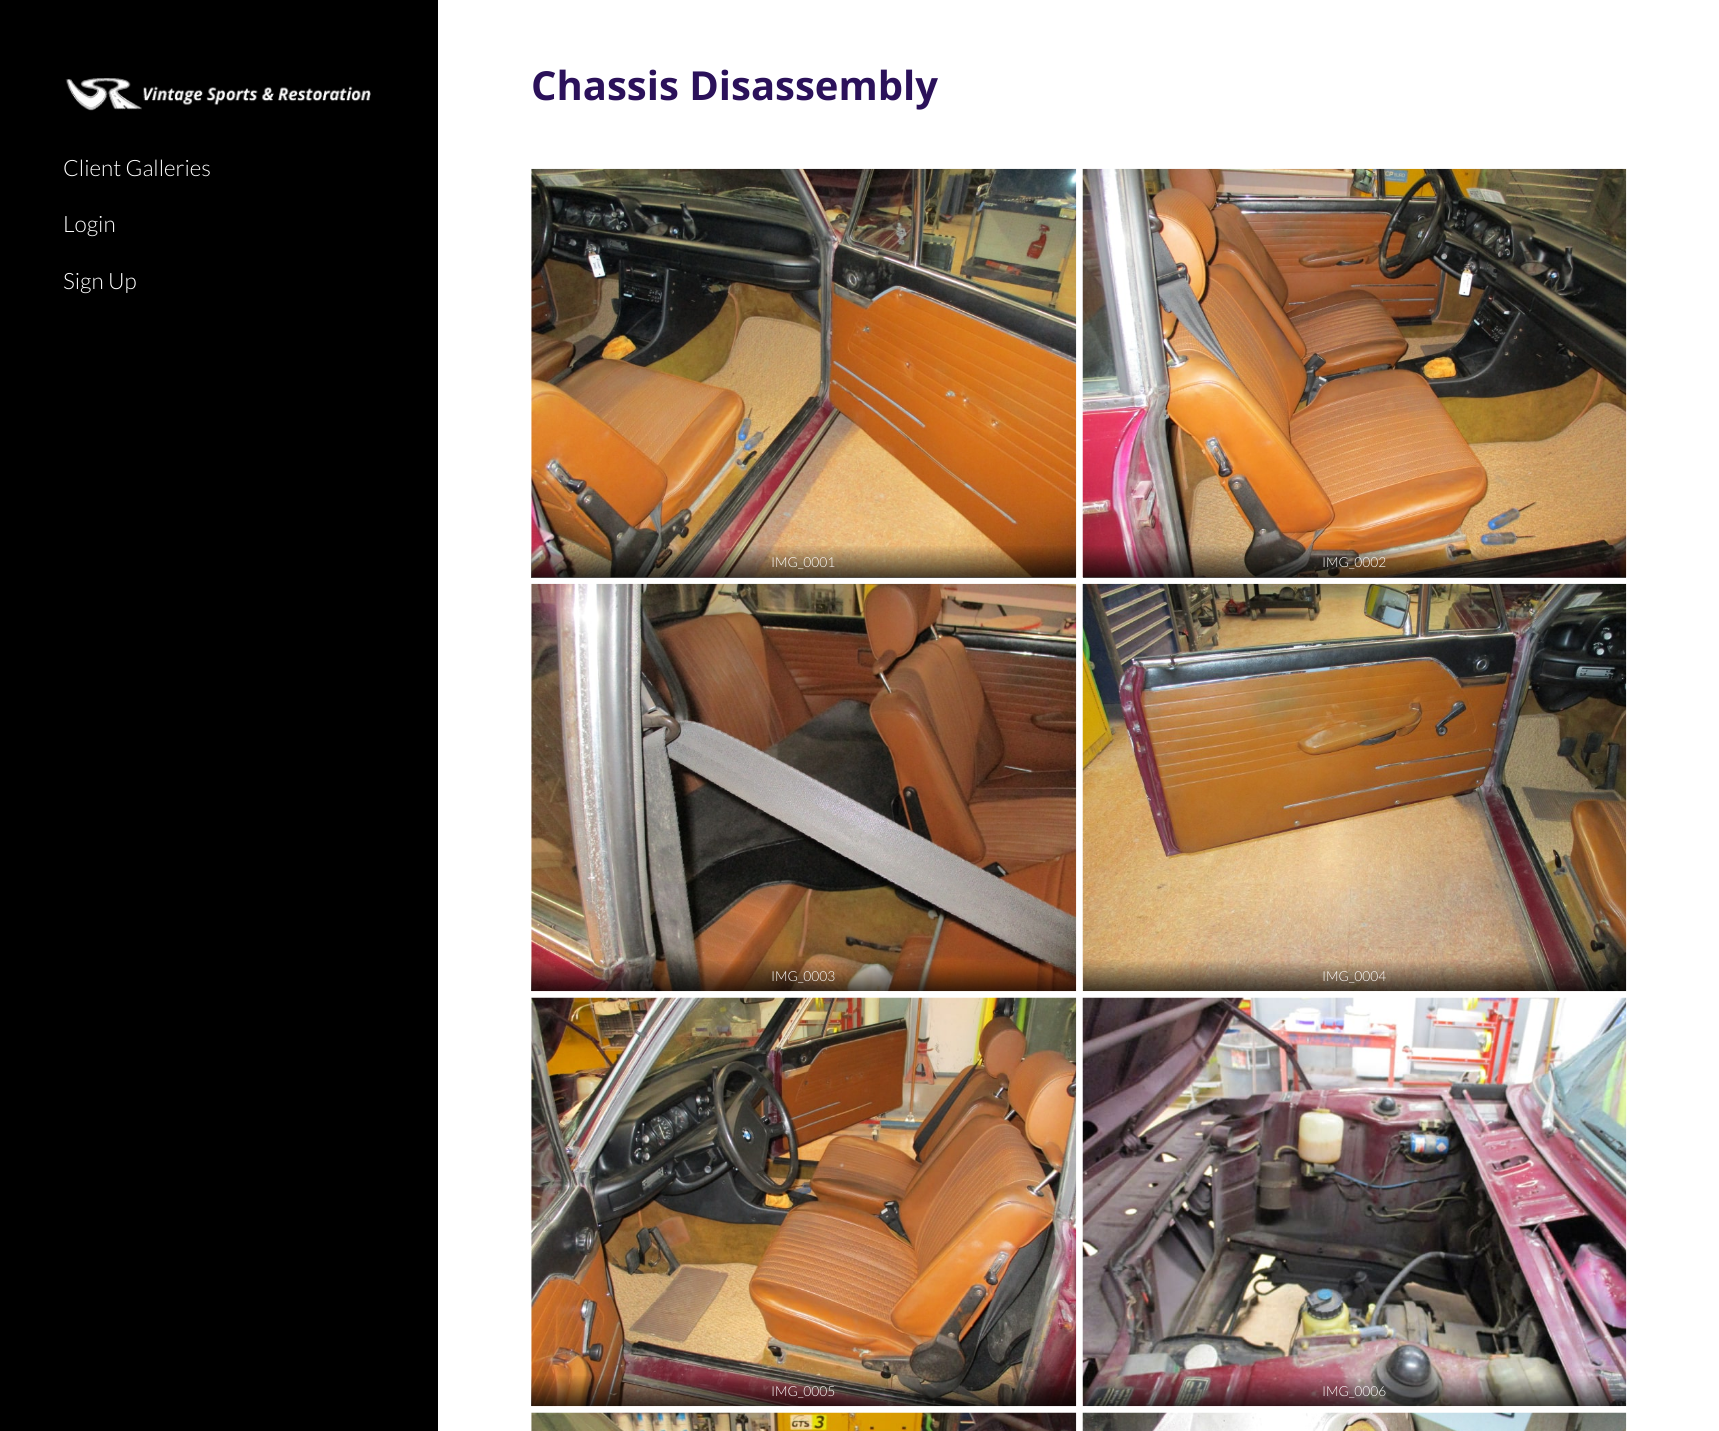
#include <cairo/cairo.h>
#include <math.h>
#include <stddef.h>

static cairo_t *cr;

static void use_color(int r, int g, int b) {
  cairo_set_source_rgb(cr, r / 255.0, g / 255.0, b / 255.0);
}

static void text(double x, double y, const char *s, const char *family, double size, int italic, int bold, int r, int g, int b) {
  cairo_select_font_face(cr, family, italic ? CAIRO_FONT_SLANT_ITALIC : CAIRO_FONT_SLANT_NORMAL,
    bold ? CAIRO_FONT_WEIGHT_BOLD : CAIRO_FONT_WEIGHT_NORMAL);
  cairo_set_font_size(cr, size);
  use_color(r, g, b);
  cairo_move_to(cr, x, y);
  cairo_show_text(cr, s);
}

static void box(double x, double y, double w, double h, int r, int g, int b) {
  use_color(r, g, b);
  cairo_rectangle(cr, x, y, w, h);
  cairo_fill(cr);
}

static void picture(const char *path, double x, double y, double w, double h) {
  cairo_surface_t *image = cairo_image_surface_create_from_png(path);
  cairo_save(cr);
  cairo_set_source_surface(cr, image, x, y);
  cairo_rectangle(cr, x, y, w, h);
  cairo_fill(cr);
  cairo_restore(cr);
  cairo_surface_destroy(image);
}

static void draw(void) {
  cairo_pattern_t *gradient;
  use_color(255, 255, 255);
  cairo_paint(cr);
  box(0, 0, 438, 1431, 0, 0, 0);
  picture("img_01.png", 65, 78, 306, 33);
  picture("img_02.png", 531, 168, 546, 410);
  gradient = cairo_pattern_create_linear(804, 578, 804, 545);
  cairo_pattern_add_color_stop_rgba(gradient, 0, 0, 0, 0, 0.7);
  cairo_pattern_add_color_stop_rgba(gradient, 1, 0, 0, 0, 0);
  cairo_set_source(cr, gradient);
  cairo_pattern_destroy(gradient);
  cairo_rectangle(cr, 531, 546, 545, 32);
  cairo_fill(cr);
  picture("img_03.png", 1082, 168, 545, 410);
  gradient = cairo_pattern_create_linear(1354, 578, 1354, 545);
  cairo_pattern_add_color_stop_rgba(gradient, 0, 0, 0, 0, 0.7);
  cairo_pattern_add_color_stop_rgba(gradient, 1, 0, 0, 0, 0);
  cairo_set_source(cr, gradient);
  cairo_pattern_destroy(gradient);
  cairo_rectangle(cr, 1083, 546, 543, 32);
  cairo_fill(cr);
  picture("img_04.png", 531, 583, 546, 409);
  gradient = cairo_pattern_create_linear(804, 991, 804, 960);
  cairo_pattern_add_color_stop_rgba(gradient, 0, 0, 0, 0, 0.7);
  cairo_pattern_add_color_stop_rgba(gradient, 1, 0, 0, 0, 0);
  cairo_set_source(cr, gradient);
  cairo_pattern_destroy(gradient);
  cairo_rectangle(cr, 531, 961, 545, 30);
  cairo_fill(cr);
  picture("img_05.png", 1082, 583, 545, 409);
  picture("img_06.png", 531, 997, 546, 410);
  gradient = cairo_pattern_create_linear(804, 1406, 804, 1375);
  cairo_pattern_add_color_stop_rgba(gradient, 0, 0, 0, 0, 0.7);
  cairo_pattern_add_color_stop_rgba(gradient, 1, 0, 0, 0, 0);
  cairo_set_source(cr, gradient);
  cairo_pattern_destroy(gradient);
  cairo_rectangle(cr, 531, 1376, 545, 30);
  cairo_fill(cr);
  picture("img_07.png", 1082, 997, 545, 410);
  picture("img_08.png", 531, 1412, 546, 19);
  picture("img_09.png", 1082, 1412, 545, 19);
  text(63, 176, "Client Galleries", "Lato Light", 22.5, 0, 0, 255, 255, 255);
  text(63, 232, "Login", "Lato Light", 22.5, 0, 0, 255, 255, 255);
  text(63, 289, "Sign Up", "Lato Light", 22.5, 0, 0, 255, 255, 255);
  text(531, 100, "Chassis Disassembly", "Open Sans", 40, 0, 1, 43, 17, 90);
  text(771, 567, "IMG_0001", "Lato Light", 13.75, 0, 0, 255, 255, 255);
  text(1322, 567, "IMG_0002", "Lato Light", 13.75, 0, 0, 255, 255, 255);
  text(771, 981, "IMG_0003", "Lato Light", 13.75, 0, 0, 255, 255, 255);
  text(1322, 981, "IMG_0004", "Lato Light", 13.75, 0, 0, 255, 255, 255);
  text(771, 1396, "IMG_0005", "Lato Light", 13.75, 0, 0, 255, 255, 255);
  text(1322, 1396, "IMG_0006", "Lato Light", 13.75, 0, 0, 255, 255, 255);
}

int main(void) {
  cairo_surface_t *surface = cairo_image_surface_create(CAIRO_FORMAT_RGB24, 1719, 1431);
  cr = cairo_create(surface);
  cairo_font_options_t *options = cairo_font_options_create();
  cairo_font_options_set_hint_metrics(options, CAIRO_HINT_METRICS_OFF);
  cairo_font_options_set_hint_style(options, CAIRO_HINT_STYLE_NONE);
  cairo_set_font_options(cr, options);
  cairo_set_miter_limit(cr, 4);
  draw();
  cairo_surface_write_to_png(surface, "out.png");
  cairo_font_options_destroy(options);
  cairo_destroy(cr);
  cairo_surface_destroy(surface);
  return 0;
}
